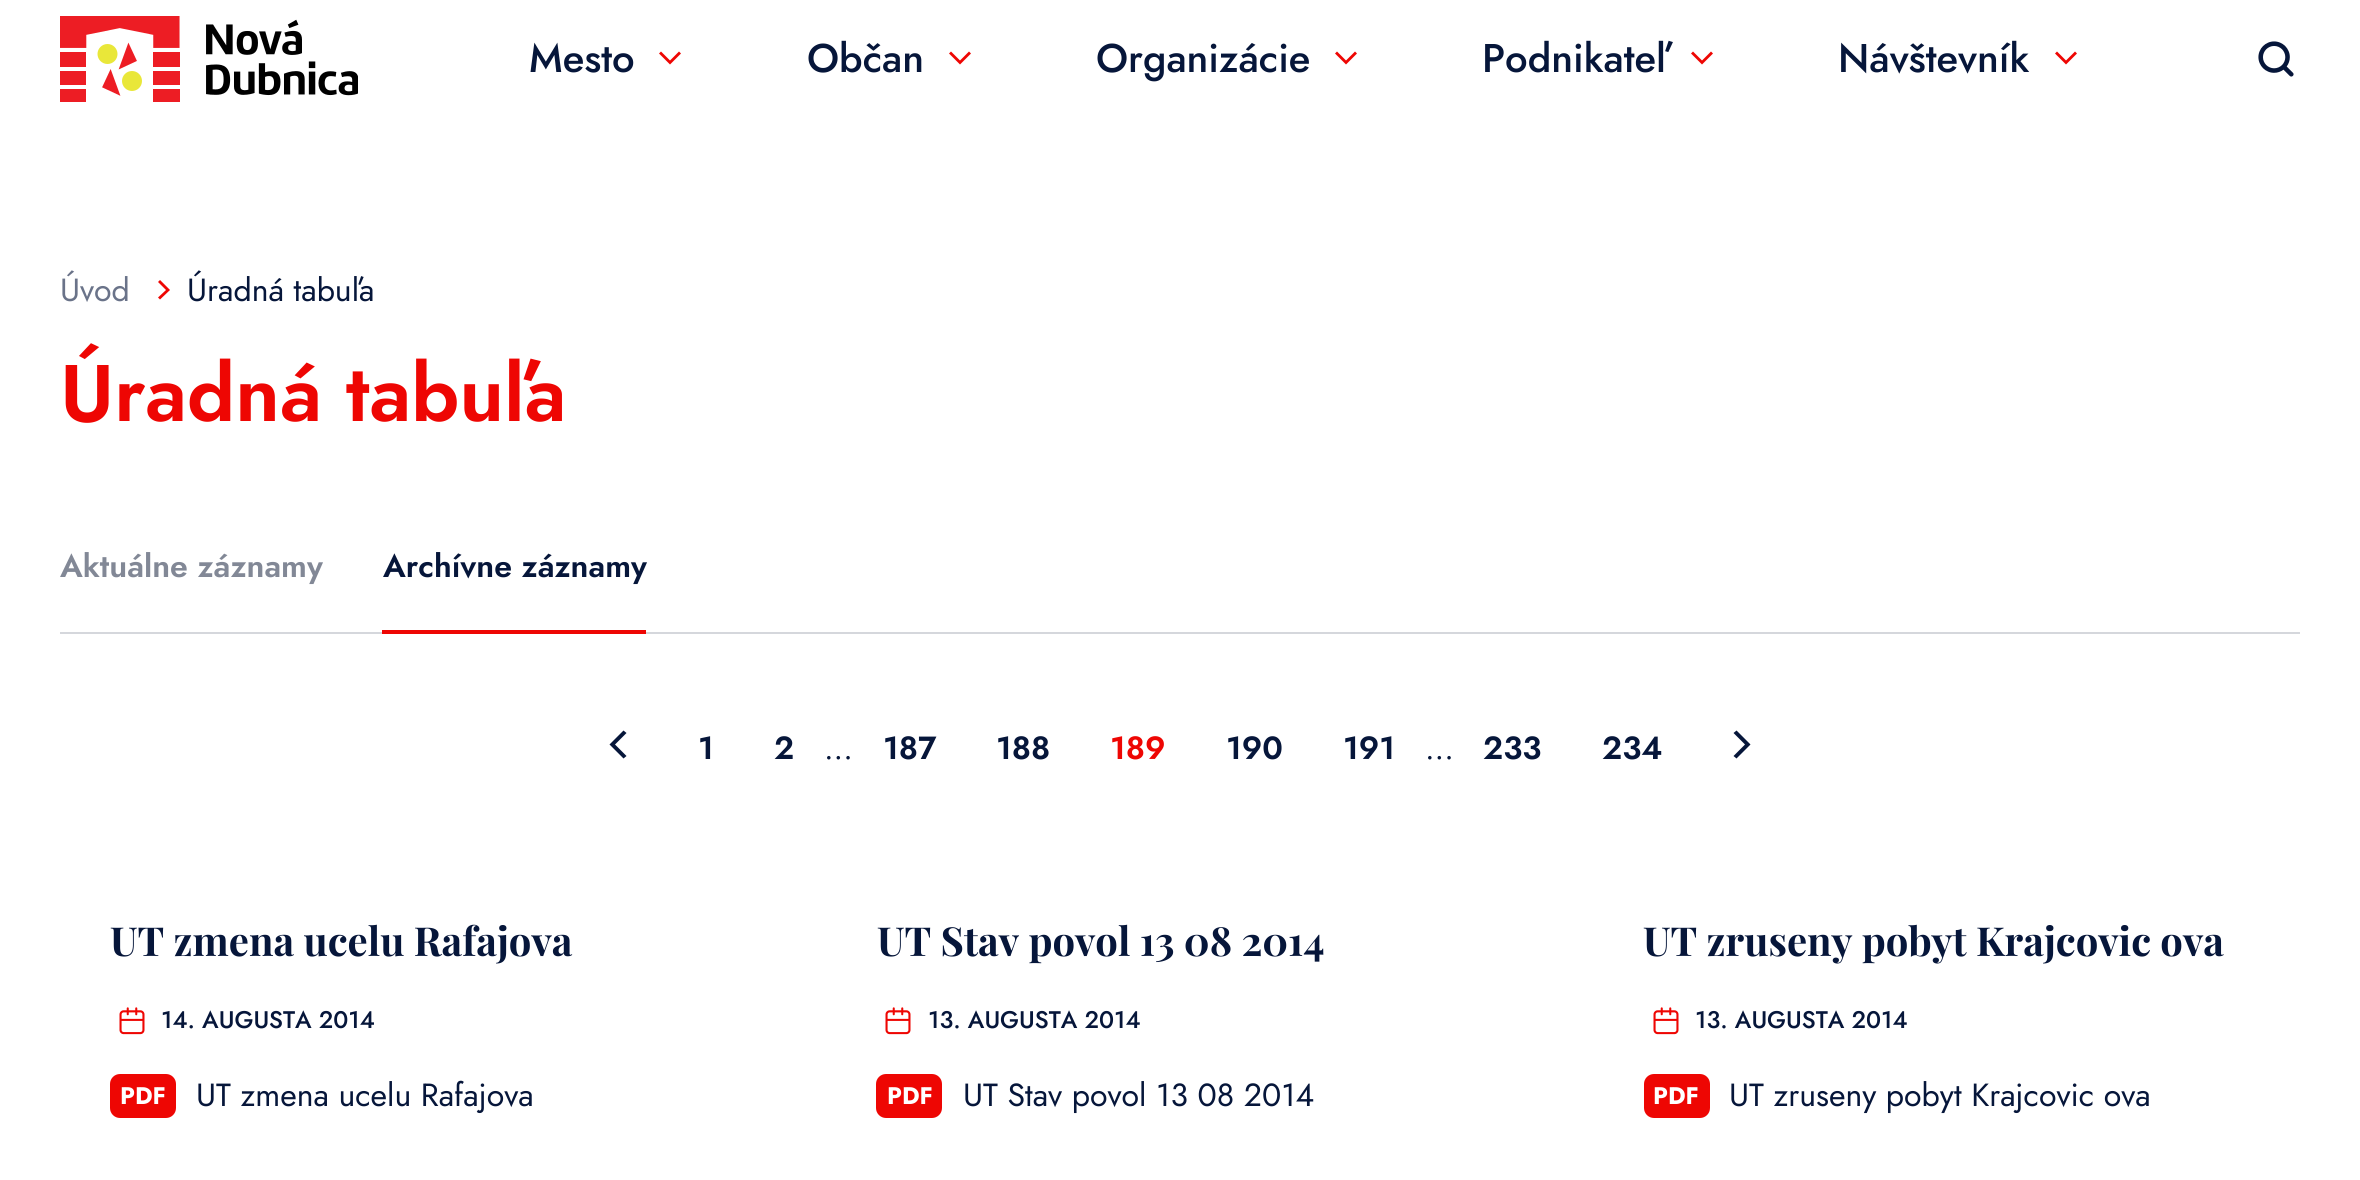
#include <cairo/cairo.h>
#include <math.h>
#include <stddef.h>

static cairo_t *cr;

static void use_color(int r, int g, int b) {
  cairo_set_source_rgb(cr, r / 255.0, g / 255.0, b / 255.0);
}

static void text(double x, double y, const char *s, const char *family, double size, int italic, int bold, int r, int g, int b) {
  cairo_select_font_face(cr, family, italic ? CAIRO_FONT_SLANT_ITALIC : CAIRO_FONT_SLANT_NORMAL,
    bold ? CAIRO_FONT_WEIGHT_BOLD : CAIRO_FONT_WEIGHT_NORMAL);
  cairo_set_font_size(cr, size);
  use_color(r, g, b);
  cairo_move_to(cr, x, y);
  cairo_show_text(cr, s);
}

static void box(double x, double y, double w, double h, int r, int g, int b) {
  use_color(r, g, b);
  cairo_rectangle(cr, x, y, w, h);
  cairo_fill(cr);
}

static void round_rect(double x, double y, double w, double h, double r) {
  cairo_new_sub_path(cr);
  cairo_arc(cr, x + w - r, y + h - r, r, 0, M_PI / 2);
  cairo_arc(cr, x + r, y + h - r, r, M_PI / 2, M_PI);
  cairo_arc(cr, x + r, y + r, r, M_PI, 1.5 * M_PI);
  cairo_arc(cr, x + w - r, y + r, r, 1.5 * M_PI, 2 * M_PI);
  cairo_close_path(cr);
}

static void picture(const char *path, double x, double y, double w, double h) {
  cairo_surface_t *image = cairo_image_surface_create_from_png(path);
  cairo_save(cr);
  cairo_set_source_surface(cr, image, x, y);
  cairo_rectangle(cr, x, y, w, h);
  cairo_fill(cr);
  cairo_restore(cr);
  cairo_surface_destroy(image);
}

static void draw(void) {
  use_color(255, 255, 255);
  cairo_paint(cr);
  picture("img_01.png", 60, 16, 298, 86);
  use_color(238, 6, 3);
  cairo_new_path(cr);
  cairo_move_to(cr, 659, 53.5);
  cairo_line_to(cr, 670, 64.5);
  cairo_line_to(cr, 681, 53.5);
  cairo_line_to(cr, 679, 51.5);
  cairo_line_to(cr, 670, 60.5);
  cairo_line_to(cr, 661, 51.5);
  cairo_close_path(cr);
  cairo_fill(cr);
  cairo_new_path(cr);
  cairo_move_to(cr, 949, 53.5);
  cairo_line_to(cr, 960, 64.5);
  cairo_line_to(cr, 971, 53.5);
  cairo_line_to(cr, 969, 51.5);
  cairo_line_to(cr, 960, 60.5);
  cairo_line_to(cr, 951, 51.5);
  cairo_close_path(cr);
  cairo_fill(cr);
  cairo_new_path(cr);
  cairo_move_to(cr, 1335, 53.5);
  cairo_line_to(cr, 1346, 64.5);
  cairo_line_to(cr, 1357, 53.5);
  cairo_line_to(cr, 1355, 51.5);
  cairo_line_to(cr, 1346, 60.5);
  cairo_line_to(cr, 1337, 51.5);
  cairo_close_path(cr);
  cairo_fill(cr);
  cairo_new_path(cr);
  cairo_move_to(cr, 1691, 53.5);
  cairo_line_to(cr, 1702, 64.5);
  cairo_line_to(cr, 1713, 53.5);
  cairo_line_to(cr, 1711, 51.5);
  cairo_line_to(cr, 1702, 60.5);
  cairo_line_to(cr, 1693, 51.5);
  cairo_close_path(cr);
  cairo_fill(cr);
  cairo_new_path(cr);
  cairo_move_to(cr, 2055, 53.5);
  cairo_line_to(cr, 2066, 64.5);
  cairo_line_to(cr, 2077, 53.5);
  cairo_line_to(cr, 2075, 51.5);
  cairo_line_to(cr, 2066, 60.5);
  cairo_line_to(cr, 2057, 51.5);
  cairo_close_path(cr);
  cairo_fill(cr);
  picture("img_02.png", 2258, 41, 36, 36);
  cairo_new_path(cr);
  cairo_move_to(cr, 160, 299.5);
  cairo_line_to(cr, 170, 290);
  cairo_line_to(cr, 160, 280);
  cairo_line_to(cr, 158, 282);
  cairo_line_to(cr, 166, 290);
  cairo_line_to(cr, 158, 297.5);
  cairo_close_path(cr);
  cairo_fill(cr);
  box(60, 632, 2240, 2, 213, 215, 220);
  box(382, 630, 264, 4, 238, 6, 3);
  use_color(6, 22, 58);
  cairo_new_path(cr);
  cairo_move_to(cr, 623.5, 758.5);
  cairo_line_to(cr, 609.5, 744.5);
  cairo_line_to(cr, 623.5, 730.5);
  cairo_line_to(cr, 626.5, 733);
  cairo_line_to(cr, 615, 744.5);
  cairo_line_to(cr, 626.5, 756);
  cairo_close_path(cr);
  cairo_fill(cr);
  cairo_new_path(cr);
  cairo_move_to(cr, 1736.5, 758.5);
  cairo_line_to(cr, 1750.5, 744.5);
  cairo_line_to(cr, 1736.5, 730.5);
  cairo_line_to(cr, 1733.5, 733);
  cairo_line_to(cr, 1745, 744.5);
  cairo_line_to(cr, 1733.5, 756);
  cairo_close_path(cr);
  cairo_fill(cr);
  picture("img_03.png", 119, 1007, 26, 28);
  use_color(238, 6, 3);
  round_rect(110, 1074, 66, 44, 10);
  cairo_fill(cr);
  picture("img_04.png", 885, 1007, 26, 28);
  round_rect(876, 1074, 66, 44, 10);
  cairo_fill(cr);
  picture("img_04.png", 1653, 1007, 26, 28);
  round_rect(1644, 1074, 66, 44, 10);
  cairo_fill(cr);
  text(529, 72, "Mesto", "Jost Medium", 40, 0, 0, 6, 22, 58);
  text(807, 72, "Občan", "Jost Medium", 40, 0, 0, 6, 22, 58);
  text(1096, 72, "Organizácie", "Jost Medium", 40, 0, 0, 6, 22, 58);
  text(1482, 72, "Podnikateľ", "Jost Medium", 40, 0, 0, 6, 22, 58);
  text(1838, 72, "Návštevník", "Jost Medium", 40, 0, 0, 6, 22, 58);
  text(60, 301, "Úvod", "Jost", 32, 0, 0, 106, 115, 137);
  text(187, 301, "Úradná tabuľa", "Jost", 32, 0, 0, 6, 22, 58);
  text(60, 421, "Úradná tabuľa", "Jost SemiBold", 80, 0, 0, 238, 6, 3);
  text(60, 577, "Aktuálne záznamy", "Jost SemiBold", 32, 0, 0, 130, 136, 150);
  text(383, 577, "Archívne záznamy", "Jost SemiBold", 32, 0, 0, 6, 22, 58);
  text(698, 759, "1", "Jost SemiBold", 32, 0, 0, 6, 22, 58);
  text(774, 759, "2", "Jost SemiBold", 32, 0, 0, 6, 22, 58);
  text(824, 759, "...", "Jost", 32, 0, 0, 6, 22, 58);
  text(883, 759, "187", "Jost SemiBold", 32, 0, 0, 6, 22, 58);
  text(996, 759, "188", "Jost SemiBold", 32, 0, 0, 6, 22, 58);
  text(1110, 759, "189", "Jost SemiBold", 32, 0, 0, 238, 6, 3);
  text(1226, 759, "190", "Jost SemiBold", 32, 0, 0, 6, 22, 58);
  text(1343, 759, "191", "Jost SemiBold", 32, 0, 0, 6, 22, 58);
  text(1425, 759, "...", "Jost", 32, 0, 0, 6, 22, 58);
  text(1483, 759, "233", "Jost SemiBold", 32, 0, 0, 6, 22, 58);
  text(1602, 759, "234", "Jost SemiBold", 32, 0, 0, 6, 22, 58);
  text(110, 956, "UT zmena ucelu Rafajova", "Playfair Display", 40, 0, 1, 6, 22, 58);
  text(161, 1028, "14. AUGUSTA 2014", "Jost Medium", 24, 0, 0, 6, 22, 58);
  text(120, 1104, "PDF", "Jost", 24, 0, 1, 255, 255, 255);
  text(196, 1106, "UT zmena ucelu Rafajova", "Jost", 32, 0, 0, 6, 22, 58);
  text(877, 956, "UT Stav povol 13 08 2014", "Playfair Display", 40, 0, 1, 6, 22, 58);
  text(928, 1028, "13. AUGUSTA 2014", "Jost Medium", 24, 0, 0, 6, 22, 58);
  text(887, 1104, "PDF", "Jost", 24, 0, 1, 255, 255, 255);
  text(963, 1106, "UT Stav povol 13 08 2014", "Jost", 32, 0, 0, 6, 22, 58);
  text(1643, 956, "UT zruseny pobyt Krajcovic ova", "Playfair Display", 40, 0, 1, 6, 22, 58);
  text(1695, 1028, "13. AUGUSTA 2014", "Jost Medium", 24, 0, 0, 6, 22, 58);
  text(1653, 1104, "PDF", "Jost", 24, 0, 1, 255, 255, 255);
  text(1729, 1106, "UT zruseny pobyt Krajcovic ova", "Jost", 32, 0, 0, 6, 22, 58);
}

int main(void) {
  cairo_surface_t *surface = cairo_image_surface_create(CAIRO_FORMAT_RGB24, 2360, 1180);
  cr = cairo_create(surface);
  cairo_font_options_t *options = cairo_font_options_create();
  cairo_font_options_set_hint_metrics(options, CAIRO_HINT_METRICS_OFF);
  cairo_font_options_set_hint_style(options, CAIRO_HINT_STYLE_NONE);
  cairo_set_font_options(cr, options);
  cairo_set_miter_limit(cr, 4);
  draw();
  cairo_surface_write_to_png(surface, "out.png");
  cairo_font_options_destroy(options);
  cairo_destroy(cr);
  cairo_surface_destroy(surface);
  return 0;
}
